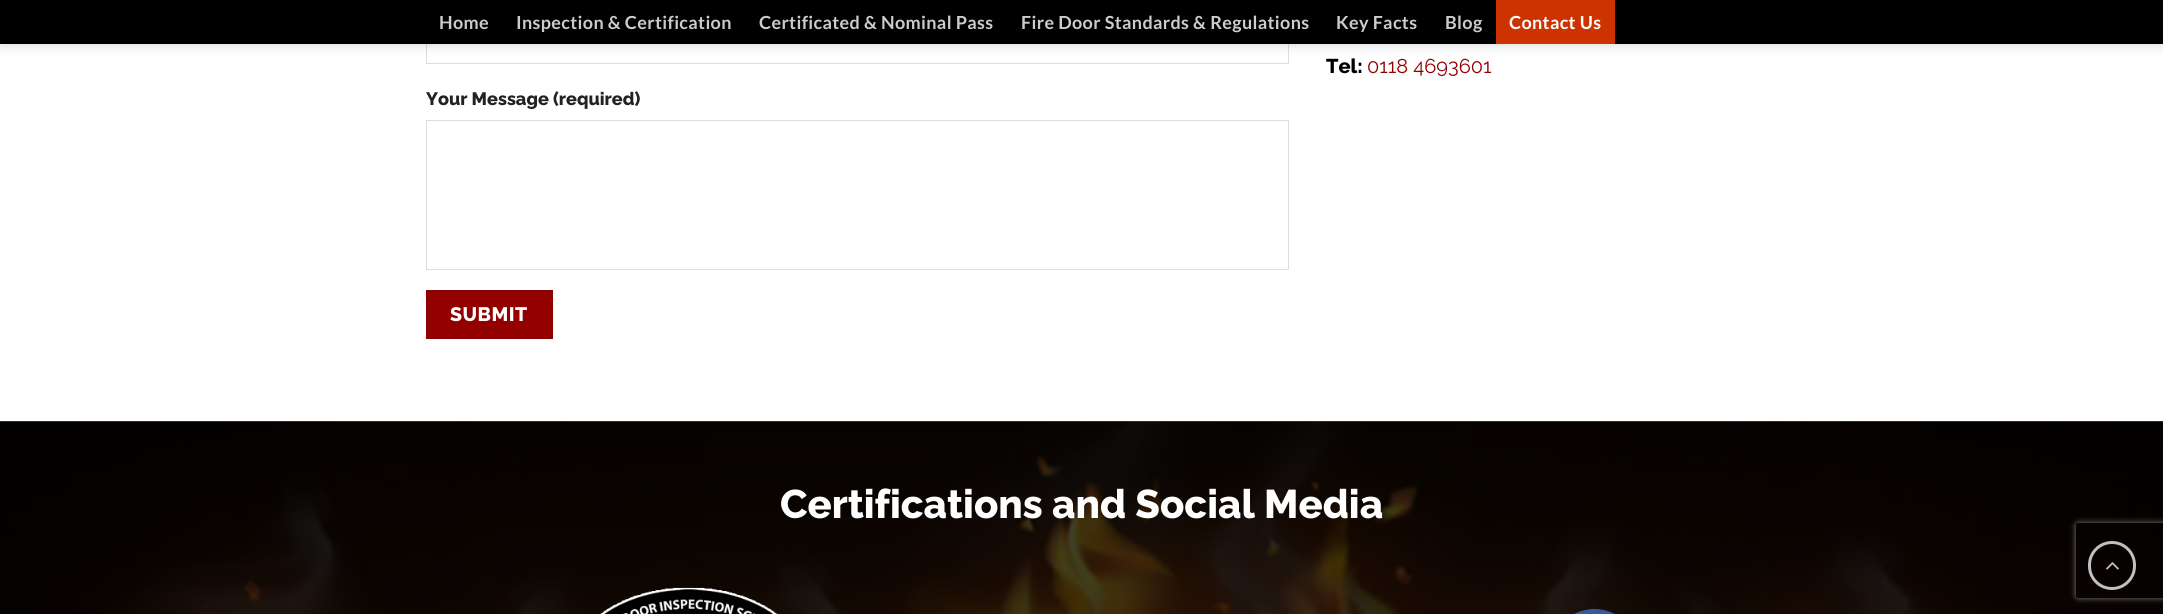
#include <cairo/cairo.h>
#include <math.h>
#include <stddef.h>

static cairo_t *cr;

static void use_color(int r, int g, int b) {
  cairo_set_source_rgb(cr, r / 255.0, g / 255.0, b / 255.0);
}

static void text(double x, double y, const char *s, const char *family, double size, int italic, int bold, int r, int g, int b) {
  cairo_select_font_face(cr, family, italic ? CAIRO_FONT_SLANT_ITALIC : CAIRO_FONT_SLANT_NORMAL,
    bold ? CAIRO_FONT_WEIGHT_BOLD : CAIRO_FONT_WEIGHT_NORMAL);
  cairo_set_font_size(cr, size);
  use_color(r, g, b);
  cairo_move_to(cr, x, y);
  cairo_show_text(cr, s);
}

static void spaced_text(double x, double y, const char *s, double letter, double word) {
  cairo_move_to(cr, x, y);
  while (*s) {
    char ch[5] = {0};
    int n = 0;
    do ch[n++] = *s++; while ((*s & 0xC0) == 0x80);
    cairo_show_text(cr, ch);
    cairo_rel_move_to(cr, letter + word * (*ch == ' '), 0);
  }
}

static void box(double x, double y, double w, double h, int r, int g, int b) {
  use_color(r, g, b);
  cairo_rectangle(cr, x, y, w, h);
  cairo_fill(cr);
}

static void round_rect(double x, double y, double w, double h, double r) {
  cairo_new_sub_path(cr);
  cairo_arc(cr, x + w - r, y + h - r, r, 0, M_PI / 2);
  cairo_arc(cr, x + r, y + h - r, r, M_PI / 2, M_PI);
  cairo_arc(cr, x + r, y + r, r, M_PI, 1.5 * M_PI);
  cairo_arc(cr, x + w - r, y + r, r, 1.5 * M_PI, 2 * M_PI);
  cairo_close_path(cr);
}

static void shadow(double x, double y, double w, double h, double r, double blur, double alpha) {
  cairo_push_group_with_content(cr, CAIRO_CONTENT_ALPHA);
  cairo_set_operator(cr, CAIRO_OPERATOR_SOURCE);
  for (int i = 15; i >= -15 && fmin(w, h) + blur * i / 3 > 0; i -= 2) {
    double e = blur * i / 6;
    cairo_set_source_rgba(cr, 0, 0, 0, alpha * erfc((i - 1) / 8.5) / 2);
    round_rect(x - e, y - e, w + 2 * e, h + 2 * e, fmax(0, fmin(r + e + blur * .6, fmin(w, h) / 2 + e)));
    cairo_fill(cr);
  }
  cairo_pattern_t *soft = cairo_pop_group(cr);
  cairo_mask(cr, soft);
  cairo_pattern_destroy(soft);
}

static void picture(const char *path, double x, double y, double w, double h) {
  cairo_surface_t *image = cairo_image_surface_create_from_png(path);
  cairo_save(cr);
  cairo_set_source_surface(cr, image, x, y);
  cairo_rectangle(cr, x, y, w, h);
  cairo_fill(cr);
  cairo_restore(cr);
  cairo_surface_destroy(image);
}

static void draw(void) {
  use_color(255, 255, 255);
  cairo_paint(cr);
  box(0, 421, 2163, 1, 64, 64, 64);
  cairo_rectangle(cr, 426.5, 15.5, 862, 48);
  use_color(221, 221, 221);
  cairo_set_line_width(cr, 1);
  cairo_stroke(cr);
  use_color(0, 0, 0);
  shadow(1, 1, 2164, 44, 0, 6, 0.15);
  box(0, 0, 2163, 44, 0, 0, 0);
  box(1496, 0, 119, 44, 204, 51, 0);
  cairo_rectangle(cr, 426.5, 120.5, 862, 149);
  use_color(221, 221, 221);
  cairo_stroke(cr);
  use_color(146, 0, 0);
  cairo_rectangle(cr, 426.5, 290.5, 126, 48);
  cairo_fill_preserve(cr);
  use_color(139, 0, 0);
  cairo_stroke(cr);
  picture("img_01.png", 0, 421, 2163, 193);
  picture("img_02.png", 599, 587, 179, 27);
  use_color(58, 88, 157);
  round_rect(1551.5, 609.5, 86, 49, 43);
  cairo_fill_preserve(cr);
  cairo_stroke(cr);
  cairo_save(cr);
  cairo_set_fill_rule(cr, CAIRO_FILL_RULE_EVEN_ODD);
  cairo_new_path(cr);
  cairo_move_to(cr, 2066, 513);
  cairo_line_to(cr, 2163, 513);
  cairo_line_to(cr, 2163, 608);
  cairo_line_to(cr, 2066, 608);
  cairo_close_path(cr);
  cairo_move_to(cr, 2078.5, 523);
  cairo_line_to(cr, 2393.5, 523);
  cairo_curve_to(cr, 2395, 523, 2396, 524, 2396, 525.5);
  cairo_line_to(cr, 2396, 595.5);
  cairo_curve_to(cr, 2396, 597, 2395, 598, 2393.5, 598);
  cairo_line_to(cr, 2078.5, 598);
  cairo_curve_to(cr, 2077, 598, 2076, 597, 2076, 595.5);
  cairo_line_to(cr, 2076, 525.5);
  cairo_curve_to(cr, 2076, 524, 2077, 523, 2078.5, 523);
  cairo_close_path(cr);
  cairo_clip(cr);
  use_color(128, 128, 128);
  shadow(2076, 523, 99, 75, 2.5, 3, 1);
  cairo_restore(cr);
  round_rect(2089.5, 542.5, 45, 46, 22.5);
  use_color(192, 192, 192);
  cairo_set_line_width(cr, 3);
  cairo_stroke(cr);
  picture("img_03.png", 2106, 562, 13, 8);
  cairo_select_font_face(cr, "Lato", CAIRO_FONT_SLANT_NORMAL, CAIRO_FONT_WEIGHT_BOLD);
  cairo_set_font_size(cr, 18);
  use_color(204, 204, 204);
  spaced_text(439, 29, "Home", 0.35, 0);
  spaced_text(516, 29, "Inspection & Certification", 0.35, 0);
  spaced_text(759, 29, "Certificated & Nominal Pass", 0.35, 0);
  spaced_text(1021, 29, "Fire Door Standards & Regulations", 0.35, 0);
  spaced_text(1336, 29, "Key Facts", 0.35, 0);
  spaced_text(1445, 29, "Blog", 0.35, 0);
  use_color(255, 255, 255);
  spaced_text(1509, 29, "Contact Us", 0.35, 0);
  text(1326, 73, "Tel:", "Raleway ExtraBold", 20, 0, 0, 0, 0, 0);
  text(1367, 73, "0118 4693601", "Raleway", 20, 0, 0, 146, 0, 0);
  text(426, 105, "Your Message (required)", "Raleway ExtraBold", 18, 0, 0, 34, 34, 34);
  cairo_set_font_size(cr, 19.5);
  use_color(255, 255, 255);
  spaced_text(450, 321, "SUBMIT", 0.5, 0);
  text(780, 518, "Certifications and Social Media", "Raleway ExtraBold", 40, 0, 0, 255, 255, 255);
}

int main(void) {
  cairo_surface_t *surface = cairo_image_surface_create(CAIRO_FORMAT_RGB24, 2163, 614);
  cr = cairo_create(surface);
  cairo_font_options_t *options = cairo_font_options_create();
  cairo_font_options_set_hint_metrics(options, CAIRO_HINT_METRICS_OFF);
  cairo_font_options_set_hint_style(options, CAIRO_HINT_STYLE_NONE);
  cairo_set_font_options(cr, options);
  cairo_set_miter_limit(cr, 4);
  draw();
  cairo_surface_write_to_png(surface, "out.png");
  cairo_font_options_destroy(options);
  cairo_destroy(cr);
  cairo_surface_destroy(surface);
  return 0;
}
